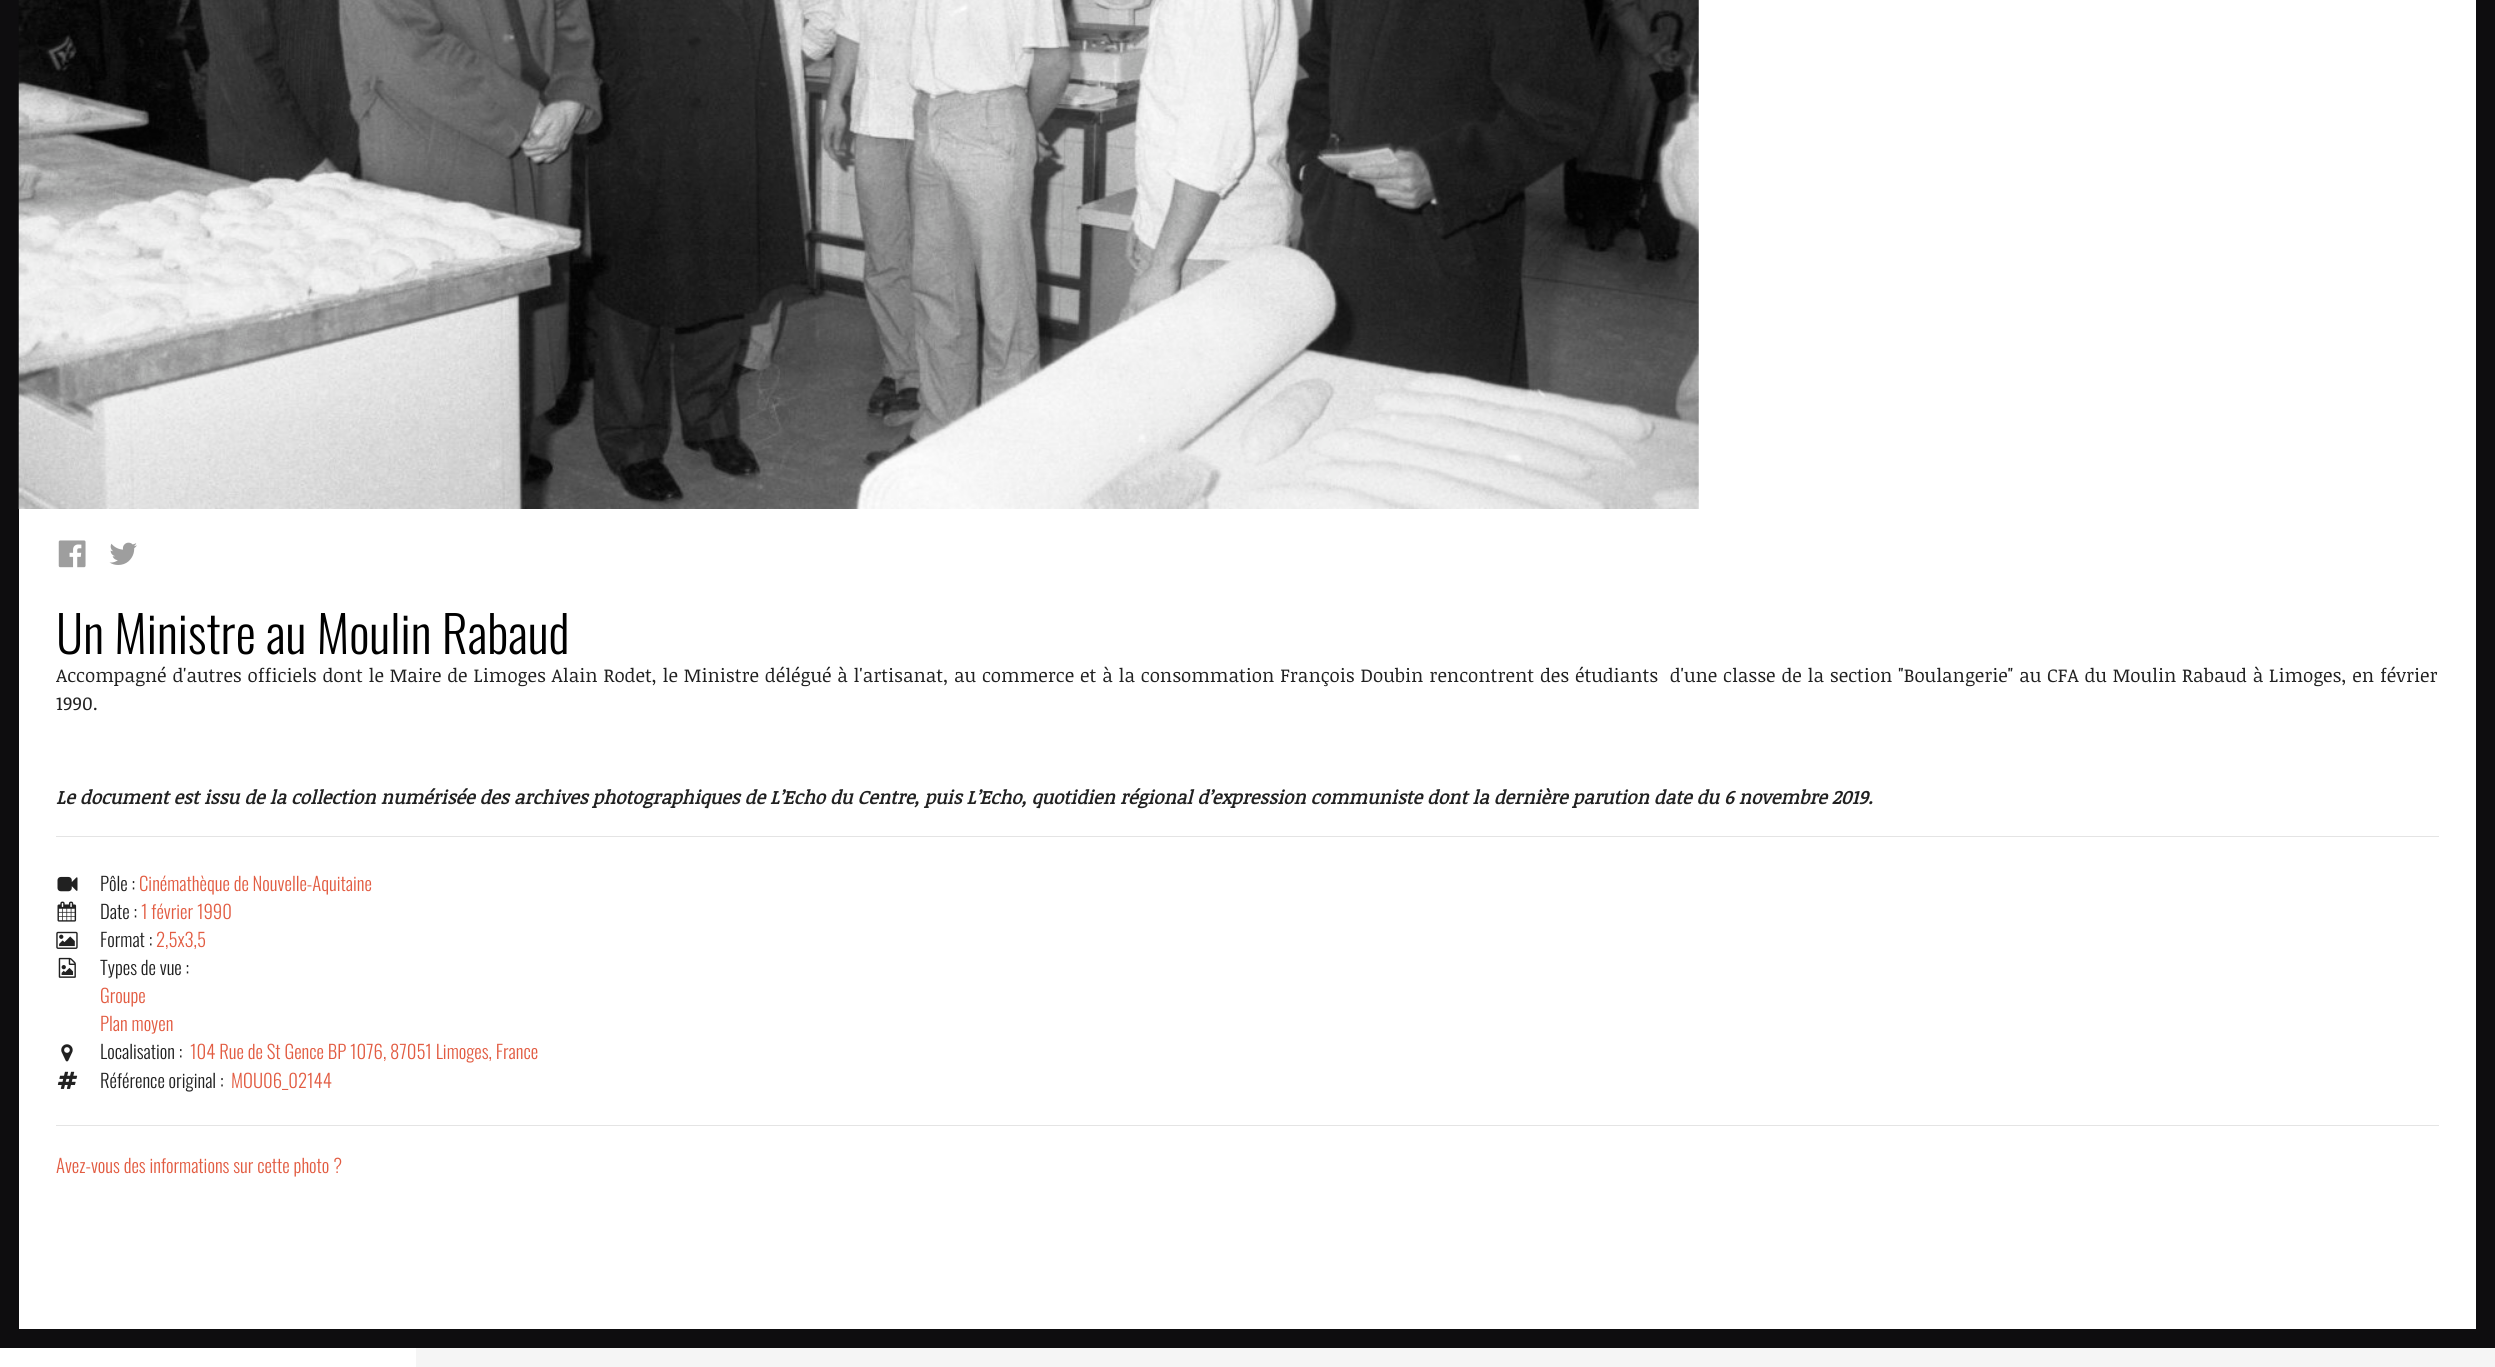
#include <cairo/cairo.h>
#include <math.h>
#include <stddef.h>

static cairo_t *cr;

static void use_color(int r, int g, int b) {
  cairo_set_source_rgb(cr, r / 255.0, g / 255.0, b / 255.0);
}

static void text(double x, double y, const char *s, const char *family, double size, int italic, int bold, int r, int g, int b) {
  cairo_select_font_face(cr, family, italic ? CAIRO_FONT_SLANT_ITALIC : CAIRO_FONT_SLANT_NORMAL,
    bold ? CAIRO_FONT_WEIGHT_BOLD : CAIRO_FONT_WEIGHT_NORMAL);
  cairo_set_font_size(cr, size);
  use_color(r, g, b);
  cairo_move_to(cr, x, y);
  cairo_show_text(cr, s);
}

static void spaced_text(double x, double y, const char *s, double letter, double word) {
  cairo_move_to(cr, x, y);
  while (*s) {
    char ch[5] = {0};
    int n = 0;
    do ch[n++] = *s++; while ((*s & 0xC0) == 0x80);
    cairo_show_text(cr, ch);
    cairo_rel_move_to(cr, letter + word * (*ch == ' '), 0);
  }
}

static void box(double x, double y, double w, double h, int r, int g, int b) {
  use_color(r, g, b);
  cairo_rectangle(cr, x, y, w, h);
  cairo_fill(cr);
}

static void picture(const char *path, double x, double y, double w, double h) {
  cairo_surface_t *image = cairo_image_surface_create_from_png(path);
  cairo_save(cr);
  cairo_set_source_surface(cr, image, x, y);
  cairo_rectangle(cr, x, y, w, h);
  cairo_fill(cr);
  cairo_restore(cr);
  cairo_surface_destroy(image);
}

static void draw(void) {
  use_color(14, 13, 15);
  cairo_paint(cr);
  box(19, 0, 2457, 1329, 255, 255, 255);
  picture("img_01.png", 18, 0, 1681, 509);
  picture("img_02.png", 58, 540, 28, 28);
  picture("img_03.png", 109, 542, 28, 23);
  box(56, 836, 2383, 1, 228, 228, 228);
  box(56, 1125, 2383, 1, 228, 228, 228);
  picture("img_04.png", 57, 876, 21, 16);
  picture("img_05.png", 57, 901, 20, 21);
  picture("img_06.png", 56, 931, 22, 18);
  picture("img_07.png", 58, 957, 18, 21);
  picture("img_08.png", 61, 1044, 12, 18);
  picture("img_09.png", 57, 1071, 21, 18);
  box(0, 1348, 416, 19, 255, 255, 255);
  box(416, 1348, 2079, 19, 245, 245, 245);
  text(56, 654, "Un Ministre au Moulin Rabaud", "Oswald Light", 50.6, 0, 0, 0, 0, 0);
  cairo_select_font_face(cr, "Noticia Text", CAIRO_FONT_SLANT_NORMAL, CAIRO_FONT_WEIGHT_NORMAL);
  cairo_set_font_size(cr, 18.75);
  use_color(33, 33, 33);
  spaced_text(56, 682, "Accompagné d'autres officiels dont le Maire de Limoges Alain Rodet, le Ministre délégué à l'artisanat, au commerce et à la consommation François Doubin rencontrent des étudiants  d'une classe de la section \"Boulangerie\" au CFA du Moulin Rabaud à Limoges, en février", 0, 0.8);
  text(56, 710, "1990.", "Noticia Text", 18.75, 0, 0, 33, 33, 33);
  text(56, 804, "Le document est issu de la collection numérisée des archives photographiques de L’Echo du Centre, puis L’Echo, quotidien régional d’expression communiste dont la dernière parution date du 6 novembre 2019.", "Noticia Text", 18.75, 1, 1, 33, 33, 33);
  text(100, 891, "Pôle :", "Oswald Light", 18.75, 0, 0, 33, 33, 33);
  text(139, 891, "Cinémathèque de Nouvelle-Aquitaine", "Oswald Light", 18.75, 0, 0, 226, 92, 66);
  text(100, 919, "Date :", "Oswald Light", 18.75, 0, 0, 33, 33, 33);
  text(141, 919, "1 février 1990", "Oswald Light", 18.75, 0, 0, 226, 92, 66);
  text(100, 947, "Format :", "Oswald Light", 18.75, 0, 0, 33, 33, 33);
  text(156, 947, "2,5x3,5", "Oswald Light", 18.75, 0, 0, 226, 92, 66);
  text(100, 975, "Types de vue :", "Oswald Light", 18.75, 0, 0, 33, 33, 33);
  text(100, 1003, "Groupe", "Oswald Light", 18.75, 0, 0, 226, 92, 66);
  text(100, 1031, "Plan moyen", "Oswald Light", 18.75, 0, 0, 226, 92, 66);
  text(100, 1059, "Localisation :", "Oswald Light", 18.75, 0, 0, 33, 33, 33);
  text(190, 1059, "104 Rue de St Gence BP 1076, 87051 Limoges, France", "Oswald Light", 18.75, 0, 0, 226, 92, 66);
  text(100, 1088, "Référence original :", "Oswald Light", 18.75, 0, 0, 33, 33, 33);
  text(231, 1088, "MOU06_02144", "Oswald Light", 18.75, 0, 0, 226, 92, 66);
  text(56, 1173, "Avez-vous des informations sur cette photo ?", "Oswald Light", 18.75, 0, 0, 226, 92, 66);
}

int main(void) {
  cairo_surface_t *surface = cairo_image_surface_create(CAIRO_FORMAT_RGB24, 2495, 1367);
  cr = cairo_create(surface);
  cairo_font_options_t *options = cairo_font_options_create();
  cairo_font_options_set_hint_metrics(options, CAIRO_HINT_METRICS_OFF);
  cairo_font_options_set_hint_style(options, CAIRO_HINT_STYLE_NONE);
  cairo_set_font_options(cr, options);
  cairo_set_miter_limit(cr, 4);
  draw();
  cairo_surface_write_to_png(surface, "out.png");
  cairo_font_options_destroy(options);
  cairo_destroy(cr);
  cairo_surface_destroy(surface);
  return 0;
}
